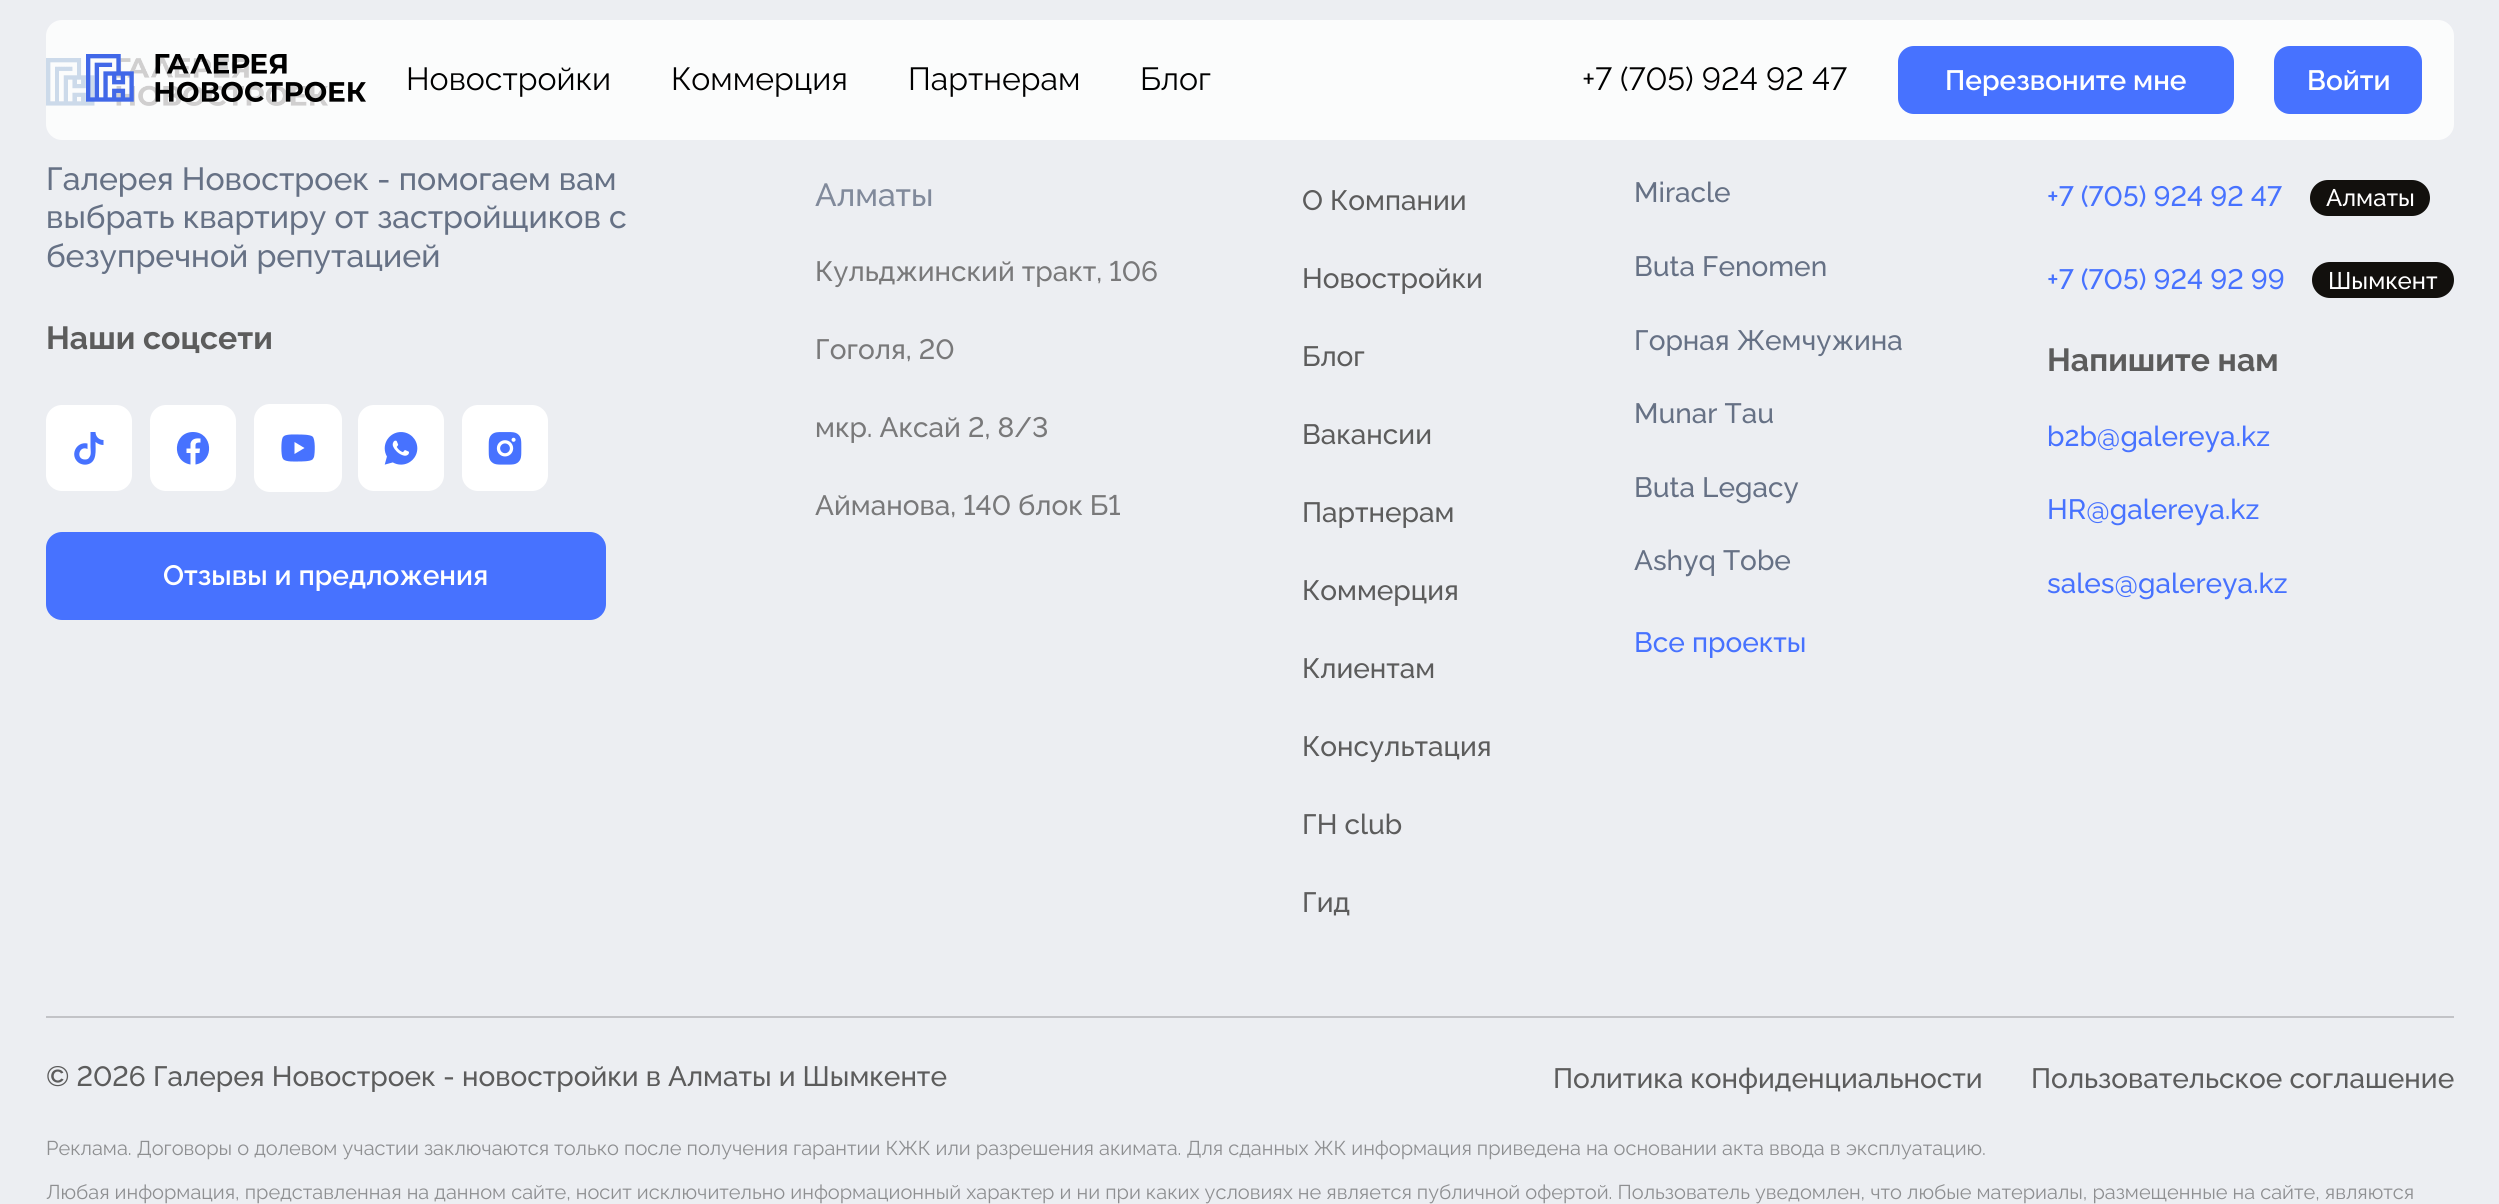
#include <cairo/cairo.h>
#include <math.h>
#include <stddef.h>

static cairo_t *cr;

static void use_color(int r, int g, int b) {
  cairo_set_source_rgb(cr, r / 255.0, g / 255.0, b / 255.0);
}

static void text(double x, double y, const char *s, const char *family, double size, int italic, int bold, int r, int g, int b) {
  cairo_select_font_face(cr, family, italic ? CAIRO_FONT_SLANT_ITALIC : CAIRO_FONT_SLANT_NORMAL,
    bold ? CAIRO_FONT_WEIGHT_BOLD : CAIRO_FONT_WEIGHT_NORMAL);
  cairo_set_font_size(cr, size);
  use_color(r, g, b);
  cairo_move_to(cr, x, y);
  cairo_show_text(cr, s);
}

static void box(double x, double y, double w, double h, int r, int g, int b) {
  use_color(r, g, b);
  cairo_rectangle(cr, x, y, w, h);
  cairo_fill(cr);
}

static void round_rect(double x, double y, double w, double h, double r) {
  cairo_new_sub_path(cr);
  cairo_arc(cr, x + w - r, y + h - r, r, 0, M_PI / 2);
  cairo_arc(cr, x + r, y + h - r, r, M_PI / 2, M_PI);
  cairo_arc(cr, x + r, y + r, r, M_PI, 1.5 * M_PI);
  cairo_arc(cr, x + w - r, y + r, r, 1.5 * M_PI, 2 * M_PI);
  cairo_close_path(cr);
}

static void picture(const char *path, double x, double y, double w, double h) {
  cairo_surface_t *image = cairo_image_surface_create_from_png(path);
  cairo_save(cr);
  cairo_set_source_surface(cr, image, x, y);
  cairo_rectangle(cr, x, y, w, h);
  cairo_fill(cr);
  cairo_restore(cr);
  cairo_surface_destroy(image);
}

static void draw(void) {
  use_color(236, 238, 242);
  cairo_paint(cr);
  picture("img_03.png", 46, 58, 282, 48);
  cairo_set_source_rgba(cr, 1, 1, 1, 0.8);
  round_rect(46, 20, 2408, 120, 16);
  cairo_fill(cr);
  picture("img_01.png", 86, 54, 48, 48);
  picture("img_02.png", 155, 54, 211, 48);
  use_color(71, 114, 255);
  round_rect(1898, 46, 336, 68, 16);
  cairo_fill(cr);
  round_rect(2274, 46, 148, 68, 16);
  cairo_fill(cr);
  use_color(255, 255, 255);
  round_rect(46, 405, 86, 86, 16);
  cairo_fill(cr);
  use_color(71, 114, 255);
  cairo_new_path(cr);
  cairo_move_to(cr, 95.5, 442);
  cairo_curve_to(cr, 95.5, 450, 97.5, 462.5, 87, 464.5);
  cairo_curve_to(cr, 84.5, 465, 81.5, 464.5, 79, 463);
  cairo_curve_to(cr, 69, 456, 76, 441, 87.5, 443.5);
  cairo_line_to(cr, 87.5, 449);
  cairo_curve_to(cr, 79, 445, 75.5, 459.5, 85, 459.5);
  cairo_curve_to(cr, 87, 459.5, 88.5, 459, 89.5, 457);
  cairo_curve_to(cr, 91.5, 454.5, 90.5, 450, 90.5, 446.5);
  cairo_line_to(cr, 90.5, 432);
  cairo_line_to(cr, 95.5, 432);
  cairo_curve_to(cr, 95.5, 436.5, 99, 440, 103.5, 440);
  cairo_line_to(cr, 103.5, 445);
  cairo_curve_to(cr, 100.5, 445, 98, 444, 95.5, 442);
  cairo_close_path(cr);
  cairo_fill(cr);
  use_color(255, 255, 255);
  round_rect(150, 405, 86, 86, 16);
  cairo_fill(cr);
  use_color(71, 114, 255);
  cairo_new_path(cr);
  cairo_move_to(cr, 193, 432);
  cairo_curve_to(cr, 173, 432, 171, 461.5, 190.5, 464.5);
  cairo_line_to(cr, 190.5, 453);
  cairo_line_to(cr, 186.5, 453);
  cairo_line_to(cr, 186.5, 448.5);
  cairo_line_to(cr, 190.5, 448.5);
  cairo_line_to(cr, 190.5, 443.5);
  cairo_curve_to(cr, 191.5, 438.5, 196.5, 438, 200.5, 438.5);
  cairo_line_to(cr, 200.5, 442.5);
  cairo_curve_to(cr, 195, 442.5, 195.5, 443.5, 195.5, 448.5);
  cairo_line_to(cr, 200, 448.5);
  cairo_line_to(cr, 199.5, 453);
  cairo_line_to(cr, 195.5, 453);
  cairo_line_to(cr, 195.5, 464.5);
  cairo_curve_to(cr, 215, 461.5, 213, 432, 193, 432);
  cairo_close_path(cr);
  cairo_fill(cr);
  use_color(255, 255, 255);
  round_rect(254, 404, 88, 88, 16);
  cairo_fill(cr);
  use_color(71, 114, 255);
  cairo_new_path(cr);
  cairo_move_to(cr, 298.5, 434.5);
  cairo_curve_to(cr, 301.5, 434.5, 310, 434.5, 312.5, 436.5);
  cairo_curve_to(cr, 315.5, 439, 315, 453, 314, 457);
  cairo_curve_to(cr, 313.5, 458, 313, 459, 312.5, 459.5);
  cairo_curve_to(cr, 310, 461.5, 301.5, 461.5, 298, 461.5);
  cairo_curve_to(cr, 294.5, 461.5, 286.5, 462, 283.5, 459.5);
  cairo_line_to(cr, 282.5, 458);
  cairo_curve_to(cr, 281, 454.5, 281, 441.5, 282.5, 438);
  cairo_curve_to(cr, 282.5, 437.5, 283.5, 436.5, 284, 436);
  cairo_curve_to(cr, 287, 434, 295, 434.5, 298.5, 434.5);
  cairo_close_path(cr);
  cairo_move_to(cr, 294.5, 442);
  cairo_line_to(cr, 294.5, 454);
  cairo_line_to(cr, 304.5, 448);
  cairo_close_path(cr);
  cairo_fill(cr);
  picture("img_04.png", 358, 405, 86, 86);
  picture("img_05.png", 462, 405, 86, 86);
  round_rect(46, 532, 560, 88, 16);
  cairo_fill(cr);
  use_color(18, 16, 13);
  round_rect(2310, 180, 120, 36, 18);
  cairo_fill(cr);
  round_rect(2312, 262, 142, 36, 18);
  cairo_fill(cr);
  box(46, 1016, 2408, 2, 194, 195, 199);
  text(406, 90, "Новостройки", "Raleway", 32, 0, 0, 0, 0, 0);
  text(671, 90, "Коммерция", "Raleway", 32, 0, 0, 0, 0, 0);
  text(908, 90, "Партнерам", "Raleway", 32, 0, 0, 0, 0, 0);
  text(1140, 90, "Блог", "Raleway", 32, 0, 0, 0, 0, 0);
  text(1582, 90, "+7 (705) 924 92 47", "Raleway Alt", 32, 0, 0, 0, 0, 0);
  text(1945, 90, "Перезвоните мне", "Raleway SemiBold", 28, 0, 0, 255, 255, 255);
  text(2307, 90, "Войти", "Raleway SemiBold", 28, 0, 0, 255, 255, 255);
  text(46, 190, "Галерея Новостроек - помогаем вам", "Raleway Medium", 32, 0, 0, 102, 113, 133);
  text(46, 228, "выбрать квартиру от застройщиков с", "Raleway Medium", 32, 0, 0, 102, 113, 133);
  text(46, 267, "безупречной репутацией", "Raleway Medium", 32, 0, 0, 102, 113, 133);
  text(46, 349, "Наши соцсети", "Raleway", 32, 0, 1, 92, 92, 92);
  text(163, 585, "Отзывы и предложения", "Raleway SemiBold", 28, 0, 0, 255, 255, 255);
  text(815, 206, "Алматы", "Raleway Medium", 32, 0, 0, 129, 138, 155);
  text(815, 281, "Кульджинский тракт, 106", "Raleway Alt Medium", 28, 0, 0, 121, 121, 122);
  text(815, 359, "Гоголя, 20", "Raleway Alt Medium", 28, 0, 0, 121, 121, 122);
  text(815, 437, "мкр. Аксай 2, 8/3", "Raleway Alt Medium", 28, 0, 0, 121, 121, 122);
  text(815, 515, "Айманова, 140 блок Б1", "Raleway Alt Medium", 28, 0, 0, 121, 121, 122);
  text(1302, 210, "О Компании", "Raleway Medium", 28, 0, 0, 92, 92, 92);
  text(1302, 288, "Новостройки", "Raleway Medium", 28, 0, 0, 92, 92, 92);
  text(1302, 366, "Блог", "Raleway Medium", 28, 0, 0, 92, 92, 92);
  text(1302, 444, "Вакансии", "Raleway Medium", 28, 0, 0, 92, 92, 92);
  text(1302, 522, "Партнерам", "Raleway Medium", 28, 0, 0, 92, 92, 92);
  text(1302, 600, "Коммерция", "Raleway Medium", 28, 0, 0, 92, 92, 92);
  text(1302, 678, "Клиентам", "Raleway Medium", 28, 0, 0, 92, 92, 92);
  text(1302, 756, "Консультация", "Raleway Medium", 28, 0, 0, 92, 92, 92);
  text(1302, 834, "ГН club", "Raleway Medium", 28, 0, 0, 92, 92, 92);
  text(1302, 912, "Гид", "Raleway Medium", 28, 0, 0, 92, 92, 92);
  text(1634, 202, "Miracle", "Raleway Medium", 28, 0, 0, 102, 113, 133);
  text(1634, 276, "Buta Fenomen", "Raleway Medium", 28, 0, 0, 102, 113, 133);
  text(1634, 350, "Горная Жемчужина", "Raleway Medium", 28, 0, 0, 102, 113, 133);
  text(1634, 423, "Munar Tau", "Raleway Medium", 28, 0, 0, 102, 113, 133);
  text(1634, 497, "Buta Legacy", "Raleway Medium", 28, 0, 0, 102, 113, 133);
  text(1634, 570, "Ashyq Tobe", "Raleway Medium", 28, 0, 0, 102, 113, 133);
  text(1634, 652, "Все проекты", "Raleway Medium", 28, 0, 0, 71, 114, 255);
  text(2047, 206, "+7 (705) 924 92 47", "Raleway Alt Medium", 28, 0, 0, 71, 114, 255);
  text(2326, 206, "Алматы", "Raleway Medium", 24, 0, 0, 255, 255, 255);
  text(2047, 289, "+7 (705) 924 92 99", "Raleway Alt Medium", 28, 0, 0, 71, 114, 255);
  text(2328, 289, "Шымкент", "Raleway Medium", 24, 0, 0, 255, 255, 255);
  text(2047, 371, "Напишите нам", "Raleway", 32, 0, 1, 92, 92, 92);
  text(2047, 446, "b2b@galereya.kz", "Raleway Medium", 28, 0, 0, 71, 114, 255);
  text(2047, 519, "HR@galereya.kz", "Raleway Medium", 28, 0, 0, 71, 114, 255);
  text(2047, 593, "sales@galereya.kz", "Raleway Medium", 28, 0, 0, 71, 114, 255);
  text(46, 1086, "© 2026 Галерея Новостроек", "Raleway Alt Medium", 28, 0, 0, 92, 92, 92);
  text(443, 1086, "- новостройки в Алматы и Шымкенте", "Raleway Medium", 28, 0, 0, 92, 92, 92);
  text(1553, 1088, "Политика конфиденциальности", "Raleway Medium", 28, 0, 0, 92, 92, 92);
  text(2031, 1088, "Пользовательское соглашение", "Raleway Medium", 28, 0, 0, 92, 92, 92);
  text(46, 1155, "Реклама. Договоры о долевом участии заключаются только после получения гарантии КЖК или разрешения акимата. Для сданных ЖК информация приведена на основании акта ввода в эксплуатацию.", "Raleway", 20, 0, 0, 142, 143, 145);
  text(46, 1199, "Любая информация, представленная на данном сайте, носит исключительно информационный характер и ни при каких условиях не является публичной офертой. Пользователь уведомлен, что любые материалы, размещенные на сайте, являются", "Raleway", 20, 0, 0, 142, 143, 145);
}

int main(void) {
  cairo_surface_t *surface = cairo_image_surface_create(CAIRO_FORMAT_RGB24, 2499, 1204);
  cr = cairo_create(surface);
  cairo_font_options_t *options = cairo_font_options_create();
  cairo_font_options_set_hint_metrics(options, CAIRO_HINT_METRICS_OFF);
  cairo_font_options_set_hint_style(options, CAIRO_HINT_STYLE_NONE);
  cairo_set_font_options(cr, options);
  cairo_set_miter_limit(cr, 4);
  draw();
  cairo_surface_write_to_png(surface, "out.png");
  cairo_font_options_destroy(options);
  cairo_destroy(cr);
  cairo_surface_destroy(surface);
  return 0;
}
